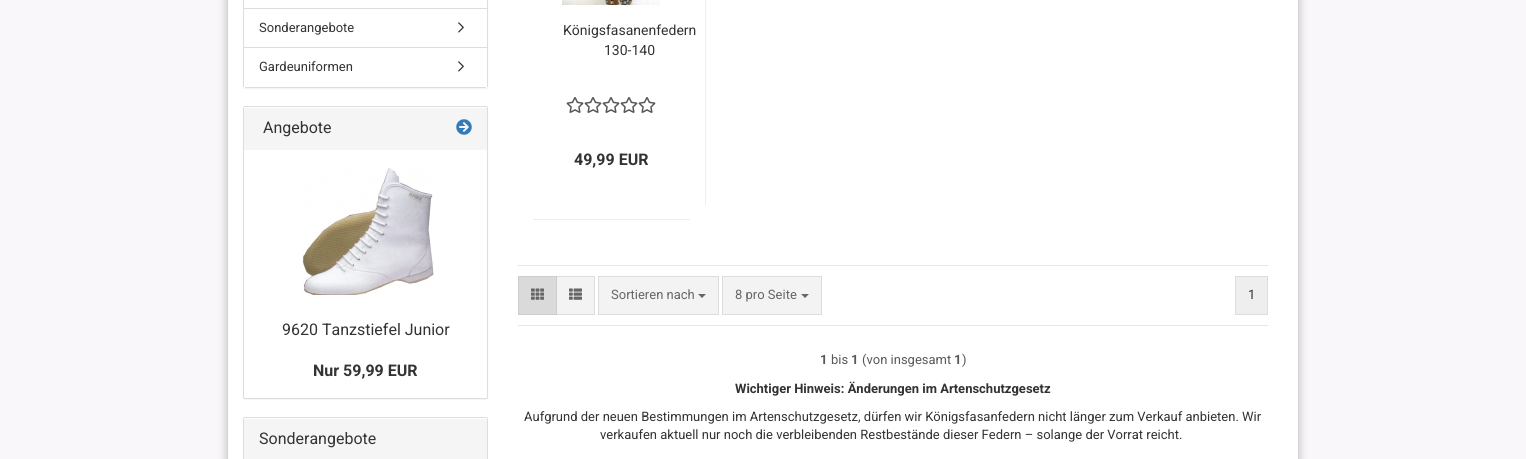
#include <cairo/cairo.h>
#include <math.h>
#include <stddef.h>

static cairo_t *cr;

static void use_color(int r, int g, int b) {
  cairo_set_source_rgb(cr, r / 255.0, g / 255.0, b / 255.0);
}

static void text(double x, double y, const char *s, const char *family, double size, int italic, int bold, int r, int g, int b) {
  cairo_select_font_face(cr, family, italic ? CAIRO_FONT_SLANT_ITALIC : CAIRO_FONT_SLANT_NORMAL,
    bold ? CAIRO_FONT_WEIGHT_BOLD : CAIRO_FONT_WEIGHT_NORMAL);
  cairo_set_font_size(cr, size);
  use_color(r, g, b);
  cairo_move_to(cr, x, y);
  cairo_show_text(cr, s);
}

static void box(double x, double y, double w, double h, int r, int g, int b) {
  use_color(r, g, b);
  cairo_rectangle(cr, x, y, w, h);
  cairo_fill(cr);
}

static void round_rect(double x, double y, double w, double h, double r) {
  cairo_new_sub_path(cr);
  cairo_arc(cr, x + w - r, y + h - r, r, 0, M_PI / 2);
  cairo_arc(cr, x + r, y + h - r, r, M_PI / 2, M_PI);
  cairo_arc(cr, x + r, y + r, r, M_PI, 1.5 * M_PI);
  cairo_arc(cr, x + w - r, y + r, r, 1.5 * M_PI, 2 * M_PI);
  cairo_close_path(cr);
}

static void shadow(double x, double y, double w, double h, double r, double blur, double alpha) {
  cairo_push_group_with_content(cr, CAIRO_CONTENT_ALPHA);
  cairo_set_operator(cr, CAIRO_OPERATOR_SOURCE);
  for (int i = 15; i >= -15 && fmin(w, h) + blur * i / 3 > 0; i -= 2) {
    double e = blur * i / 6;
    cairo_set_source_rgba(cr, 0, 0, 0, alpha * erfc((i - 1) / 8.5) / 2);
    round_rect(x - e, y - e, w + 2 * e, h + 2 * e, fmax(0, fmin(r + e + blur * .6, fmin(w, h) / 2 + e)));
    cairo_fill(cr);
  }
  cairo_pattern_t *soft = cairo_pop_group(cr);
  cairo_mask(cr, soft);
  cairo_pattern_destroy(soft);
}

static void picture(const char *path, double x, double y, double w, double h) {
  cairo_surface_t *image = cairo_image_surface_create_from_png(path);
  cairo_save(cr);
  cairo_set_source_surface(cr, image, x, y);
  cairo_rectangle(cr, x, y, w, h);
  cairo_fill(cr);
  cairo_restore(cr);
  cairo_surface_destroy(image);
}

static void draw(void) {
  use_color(249, 247, 249);
  cairo_paint(cr);
  use_color(0, 0, 0);
  shadow(228, -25, 1070, 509, 10, 5, 0.3);
  box(228, 0, 1070, 459, 255, 255, 255);
  use_color(0, 0, 0);
  shadow(243, -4, 245, 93, 2, 0.5, 0.05);
  use_color(255, 255, 255);
  round_rect(243, -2, 245, 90, 2);
  cairo_fill(cr);
  box(487, 0, 1, 87, 221, 221, 221);
  box(243, 0, 1, 87, 221, 221, 221);
  box(244, 8, 243, 1, 221, 221, 221);
  box(244, 47, 243, 1, 221, 221, 221);
  picture("img_01.png", 458, 22, 6, 11);
  box(245, 87, 241, 1, 221, 221, 221);
  picture("img_01.png", 458, 61, 6, 11);
  use_color(0, 0, 0);
  shadow(243, 107, 245, 293, 2, 0.5, 0.05);
  use_color(255, 255, 255);
  round_rect(243.5, 106.5, 244, 292, 1.5);
  cairo_fill_preserve(cr);
  use_color(221, 221, 221);
  cairo_set_line_width(cr, 1);
  cairo_stroke(cr);
  use_color(245, 245, 245);
  cairo_new_path(cr);
  cairo_move_to(cr, 245, 107);
  cairo_line_to(cr, 486, 107);
  cairo_curve_to(cr, 486.5, 107, 487, 107.5, 487, 108);
  cairo_line_to(cr, 487, 150);
  cairo_line_to(cr, 244, 150);
  cairo_line_to(cr, 244, 108);
  cairo_curve_to(cr, 244, 107.5, 244.5, 107, 245, 107);
  cairo_close_path(cr);
  cairo_fill(cr);
  use_color(255, 255, 255);
  cairo_new_path(cr);
  cairo_move_to(cr, 245, 108);
  cairo_line_to(cr, 487, 108);
  cairo_line_to(cr, 487, 109);
  cairo_curve_to(cr, 487, 108, 487, 107, 486, 107);
  cairo_line_to(cr, 245, 107);
  cairo_curve_to(cr, 244, 107, 244, 108, 244, 109);
  cairo_close_path(cr);
  cairo_fill(cr);
  picture("img_02.png", 456, 119, 16, 16);
  picture("img_03.png", 302, 168, 132, 127);
  round_rect(243.5, 417.5, 244, 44, 1.5);
  use_color(221, 221, 221);
  cairo_stroke(cr);
  use_color(245, 245, 245);
  cairo_new_path(cr);
  cairo_move_to(cr, 245, 418);
  cairo_line_to(cr, 486, 418);
  cairo_curve_to(cr, 486.5, 418, 487, 418.5, 487, 419);
  cairo_line_to(cr, 487, 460);
  cairo_line_to(cr, 244, 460);
  cairo_line_to(cr, 244, 419);
  cairo_curve_to(cr, 244, 418.5, 244.5, 418, 245, 418);
  cairo_close_path(cr);
  cairo_fill(cr);
  use_color(255, 255, 255);
  cairo_new_path(cr);
  cairo_move_to(cr, 245, 419);
  cairo_line_to(cr, 487, 419);
  cairo_line_to(cr, 487, 420);
  cairo_curve_to(cr, 487, 419, 487, 418, 486, 418);
  cairo_line_to(cr, 245, 418);
  cairo_curve_to(cr, 244, 418, 244, 419, 244, 420);
  cairo_close_path(cr);
  cairo_fill(cr);
  box(705, 0, 1, 205, 238, 238, 238);
  box(533, 219, 157, 1, 238, 238, 238);
  picture("img_04.png", 562, 0, 98, 5);
  picture("img_05.png", 566, 97, 18, 16);
  picture("img_05.png", 584, 97, 18, 16);
  picture("img_05.png", 602, 97, 18, 16);
  picture("img_05.png", 620, 97, 18, 16);
  picture("img_05.png", 638, 97, 18, 16);
  box(518, 265, 750, 1, 231, 231, 231);
  box(518, 325, 750, 1, 231, 231, 231);
  use_color(243, 243, 243);
  cairo_rectangle(cr, 556.5, 276.5, 38, 38);
  cairo_fill_preserve(cr);
  use_color(221, 221, 221);
  cairo_stroke(cr);
  use_color(218, 218, 218);
  cairo_rectangle(cr, 518.5, 276.5, 38, 38);
  cairo_fill_preserve(cr);
  use_color(204, 204, 204);
  cairo_stroke(cr);
  picture("img_06.png", 531, 288, 13, 12);
  picture("img_07.png", 569, 288, 13, 12);
  use_color(243, 243, 243);
  cairo_rectangle(cr, 598.5, 276.5, 120, 38);
  cairo_fill_preserve(cr);
  use_color(221, 221, 221);
  cairo_stroke(cr);
  use_color(102, 102, 102);
  cairo_new_path(cr);
  cairo_move_to(cr, 698, 294);
  cairo_line_to(cr, 706, 294);
  cairo_line_to(cr, 702, 298);
  cairo_close_path(cr);
  cairo_fill(cr);
  use_color(243, 243, 243);
  cairo_rectangle(cr, 722.5, 276.5, 99, 38);
  cairo_fill_preserve(cr);
  use_color(221, 221, 221);
  cairo_stroke(cr);
  use_color(102, 102, 102);
  cairo_new_path(cr);
  cairo_move_to(cr, 801, 294);
  cairo_line_to(cr, 809, 294);
  cairo_line_to(cr, 805, 298);
  cairo_close_path(cr);
  cairo_fill(cr);
  use_color(238, 238, 238);
  cairo_rectangle(cr, 1235.5, 276.5, 32, 38);
  cairo_fill_preserve(cr);
  use_color(221, 221, 221);
  cairo_stroke(cr);
  text(259, 32, "Sonderangebote", "Roboto", 13, 0, 0, 51, 51, 51);
  text(259, 71, "Gardeuniformen", "Roboto", 13, 0, 0, 51, 51, 51);
  text(263, 133, "Angebote", "Roboto", 16, 0, 0, 51, 51, 51);
  text(282, 335, "9620 Tanzstiefel Junior", "Roboto", 16, 0, 0, 51, 51, 51);
  text(313, 376, "Nur 59,99 EUR", "Roboto", 16, 0, 1, 51, 51, 51);
  text(259, 444, "Sonderangebote", "Roboto", 16, 0, 0, 51, 51, 51);
  text(563, 35, "Königsfasanenfedern", "Roboto", 14, 0, 0, 51, 51, 51);
  text(604, 55, "130-140", "Roboto", 14, 0, 0, 51, 51, 51);
  text(574, 165, "49,99 EUR", "Roboto", 16, 0, 1, 51, 51, 51);
  text(611, 299, "Sortieren nach", "Roboto", 13, 0, 0, 102, 102, 102);
  text(735, 299, "8 pro Seite", "Roboto", 13, 0, 0, 102, 102, 102);
  text(1248, 299, "1", "Roboto", 13, 0, 0, 51, 51, 51);
  text(820, 364, "1", "Roboto", 13, 0, 1, 89, 89, 89);
  text(831, 364, "bis", "Roboto", 13, 0, 0, 89, 89, 89);
  text(851, 364, "1", "Roboto", 13, 0, 1, 89, 89, 89);
  text(862, 364, "(von insgesamt", "Roboto", 13, 0, 0, 89, 89, 89);
  text(954, 364, "1", "Roboto", 13, 0, 1, 89, 89, 89);
  text(962, 364, ")", "Roboto", 13, 0, 0, 89, 89, 89);
  text(735, 393, "Wichtiger Hinweis: Änderungen im Artenschutzgesetz", "Roboto", 13, 0, 1, 51, 51, 51);
  text(524, 421, "Aufgrund der neuen Bestimmungen im Artenschutzgesetz, dürfen wir Königsfasanfedern nicht länger zum Verkauf anbieten. Wir", "Roboto", 13, 0, 0, 51, 51, 51);
  text(600, 439, "verkaufen aktuell nur noch die verbleibenden Restbestände dieser Federn – solange der Vorrat reicht.", "Roboto", 13, 0, 0, 51, 51, 51);
}

int main(void) {
  cairo_surface_t *surface = cairo_image_surface_create(CAIRO_FORMAT_RGB24, 1526, 459);
  cr = cairo_create(surface);
  cairo_font_options_t *options = cairo_font_options_create();
  cairo_font_options_set_hint_metrics(options, CAIRO_HINT_METRICS_OFF);
  cairo_font_options_set_hint_style(options, CAIRO_HINT_STYLE_NONE);
  cairo_set_font_options(cr, options);
  cairo_set_miter_limit(cr, 4);
  draw();
  cairo_surface_write_to_png(surface, "out.png");
  cairo_font_options_destroy(options);
  cairo_destroy(cr);
  cairo_surface_destroy(surface);
  return 0;
}
